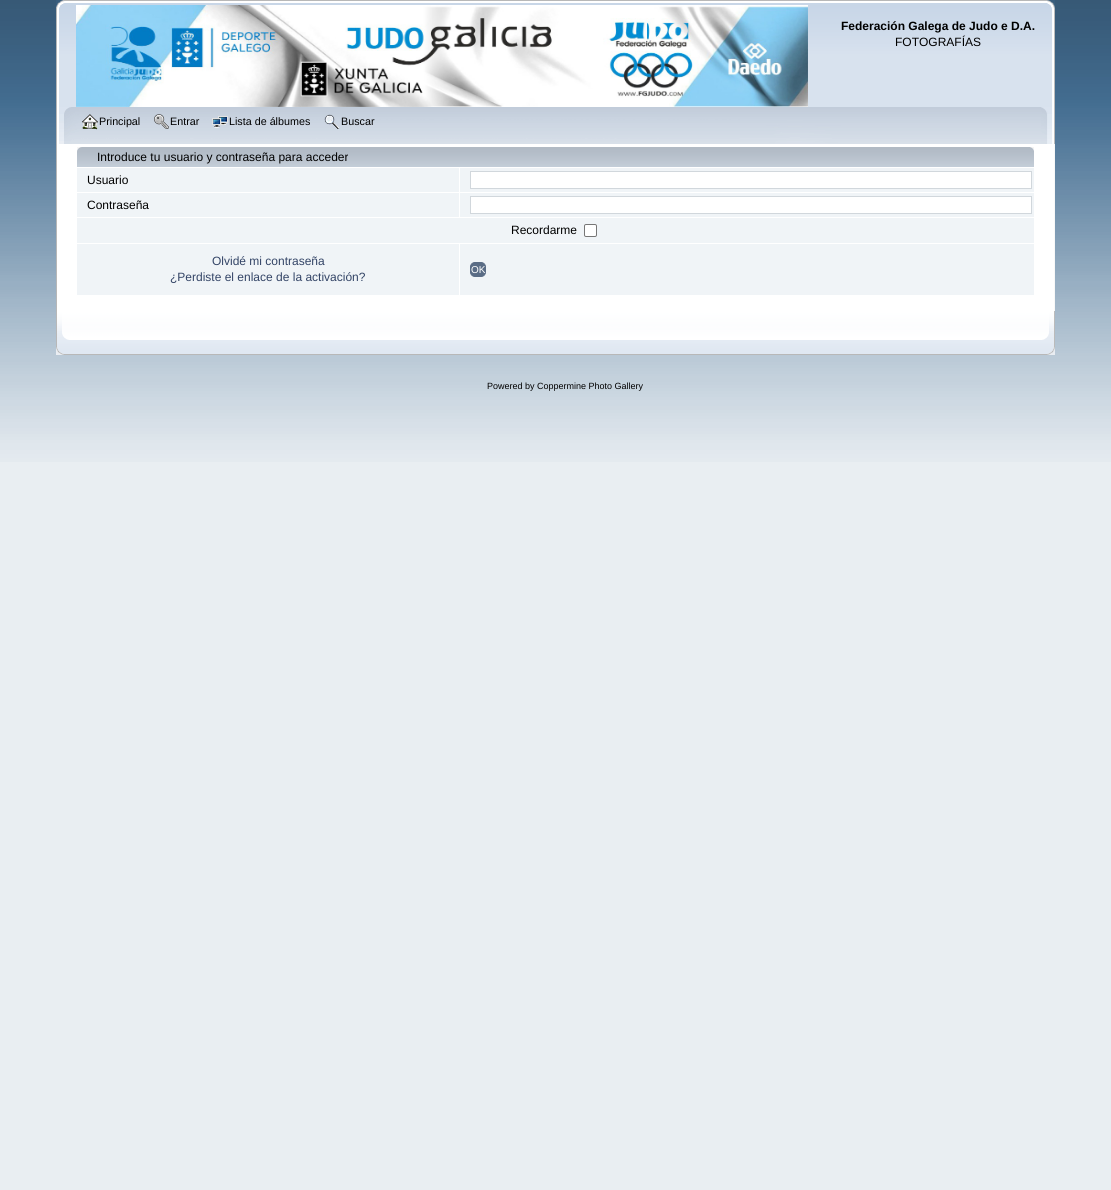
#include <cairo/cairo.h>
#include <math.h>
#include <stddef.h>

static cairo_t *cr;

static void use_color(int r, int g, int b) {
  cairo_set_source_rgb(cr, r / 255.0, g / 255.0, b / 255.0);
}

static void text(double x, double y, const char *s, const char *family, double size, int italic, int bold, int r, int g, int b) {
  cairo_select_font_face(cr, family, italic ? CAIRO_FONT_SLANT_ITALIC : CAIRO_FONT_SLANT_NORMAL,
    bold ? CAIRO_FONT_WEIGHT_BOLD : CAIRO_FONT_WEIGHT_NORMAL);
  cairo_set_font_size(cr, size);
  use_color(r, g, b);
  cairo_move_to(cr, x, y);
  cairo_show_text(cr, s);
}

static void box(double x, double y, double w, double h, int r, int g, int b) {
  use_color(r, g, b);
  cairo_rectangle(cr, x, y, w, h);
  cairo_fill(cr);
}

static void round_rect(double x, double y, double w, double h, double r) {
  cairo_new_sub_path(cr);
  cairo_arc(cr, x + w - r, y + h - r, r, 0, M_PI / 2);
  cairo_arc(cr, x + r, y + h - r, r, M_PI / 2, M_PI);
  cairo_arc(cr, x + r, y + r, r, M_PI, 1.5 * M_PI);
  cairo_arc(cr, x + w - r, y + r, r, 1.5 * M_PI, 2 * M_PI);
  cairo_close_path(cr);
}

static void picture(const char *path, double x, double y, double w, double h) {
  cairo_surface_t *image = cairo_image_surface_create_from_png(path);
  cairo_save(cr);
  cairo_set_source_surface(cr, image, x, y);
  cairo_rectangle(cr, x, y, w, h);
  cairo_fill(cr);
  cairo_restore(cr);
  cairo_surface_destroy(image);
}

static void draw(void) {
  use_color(233, 238, 242);
  cairo_paint(cr);
  picture("img_01.png", 0, 0, 1111, 462);
  picture("img_02.png", 56, 0, 991, 107);
  picture("img_03.png", 1047, 0, 8, 107);
  picture("img_04.png", 76, 5, 732, 102);
  picture("img_05.png", 56, 107, 985, 37);
  picture("img_06.png", 1041, 107, 14, 37);
  picture("img_07.png", 82, 114, 16, 16);
  picture("img_08.png", 154, 114, 15, 15);
  picture("img_09.png", 212, 116, 16, 12);
  picture("img_10.png", 324, 114, 16, 15);
  box(57, 144, 997, 167, 255, 255, 255);
  box(56, 144, 1, 167, 183, 183, 183);
  box(1054, 144, 1, 167, 248, 248, 248);
  picture("img_11.png", 77, 147, 957, 20);
  picture("img_12.png", 1030, 147, 4, 4);
  box(77, 168, 382, 24, 240, 244, 247);
  box(460, 168, 574, 24, 240, 244, 247);
  use_color(255, 255, 255);
  cairo_rectangle(cr, 470.5, 171.5, 561, 17);
  cairo_fill_preserve(cr);
  use_color(209, 215, 220);
  cairo_set_line_width(cr, 1);
  cairo_stroke(cr);
  box(77, 193, 382, 24, 240, 244, 247);
  box(460, 193, 574, 24, 240, 244, 247);
  use_color(255, 255, 255);
  cairo_rectangle(cr, 470.5, 196.5, 561, 17);
  cairo_fill_preserve(cr);
  use_color(209, 215, 220);
  cairo_stroke(cr);
  box(77, 218, 957, 25, 240, 244, 247);
  use_color(255, 255, 255);
  round_rect(584.5, 224.5, 12, 12, 1.5);
  cairo_fill_preserve(cr);
  use_color(118, 118, 118);
  cairo_stroke(cr);
  box(77, 244, 382, 51, 240, 244, 247);
  box(460, 244, 574, 51, 240, 244, 247);
  use_color(90, 108, 133);
  round_rect(470.5, 262.5, 15, 14, 4.5);
  cairo_fill_preserve(cr);
  cairo_stroke(cr);
  picture("img_13.png", 56, 311, 986, 44);
  picture("img_14.png", 1042, 311, 13, 44);
  text(841, 30, "Federación Galega de Judo e D.A.", "Liberation Sans", 12, 0, 1, 0, 0, 0);
  text(895, 46, "FOTOGRAFÍAS", "Liberation Sans", 12, 0, 0, 0, 0, 0);
  text(99, 125, "Principal", "Liberation Sans", 10.75, 0, 0, 0, 0, 0);
  text(170, 125, "Entrar", "Liberation Sans", 10.75, 0, 0, 0, 0, 0);
  text(229, 125, "Lista de álbumes", "Liberation Sans", 10.75, 0, 0, 0, 0, 0);
  text(341, 125, "Buscar", "Liberation Sans", 10.75, 0, 0, 0, 0, 0);
  text(97, 161, "Introduce tu usuario y contraseña para acceder", "Liberation Sans", 12, 0, 0, 0, 0, 0);
  text(87, 184, "Usuario", "Liberation Sans", 12, 0, 0, 0, 0, 0);
  text(87, 209, "Contraseña", "Liberation Sans", 12, 0, 0, 0, 0, 0);
  text(511, 234, "Recordarme", "Liberation Sans", 12, 0, 0, 0, 0, 0);
  text(212, 265, "Olvidé mi contraseña", "Liberation Sans", 12, 0, 0, 51, 68, 102);
  text(170, 281, "¿Perdiste el enlace de la activación?", "Liberation Sans", 12, 0, 0, 51, 68, 102);
  text(471, 273, "OK", "Liberation Sans", 10, 0, 0, 255, 255, 255);
  text(487, 389, "Powered by Coppermine Photo Gallery", "Liberation Sans", 9, 0, 0, 0, 0, 0);
}

int main(void) {
  cairo_surface_t *surface = cairo_image_surface_create(CAIRO_FORMAT_RGB24, 1111, 1190);
  cr = cairo_create(surface);
  cairo_font_options_t *options = cairo_font_options_create();
  cairo_font_options_set_hint_metrics(options, CAIRO_HINT_METRICS_OFF);
  cairo_font_options_set_hint_style(options, CAIRO_HINT_STYLE_NONE);
  cairo_set_font_options(cr, options);
  cairo_set_miter_limit(cr, 4);
  draw();
  cairo_surface_write_to_png(surface, "out.png");
  cairo_font_options_destroy(options);
  cairo_destroy(cr);
  cairo_surface_destroy(surface);
  return 0;
}
